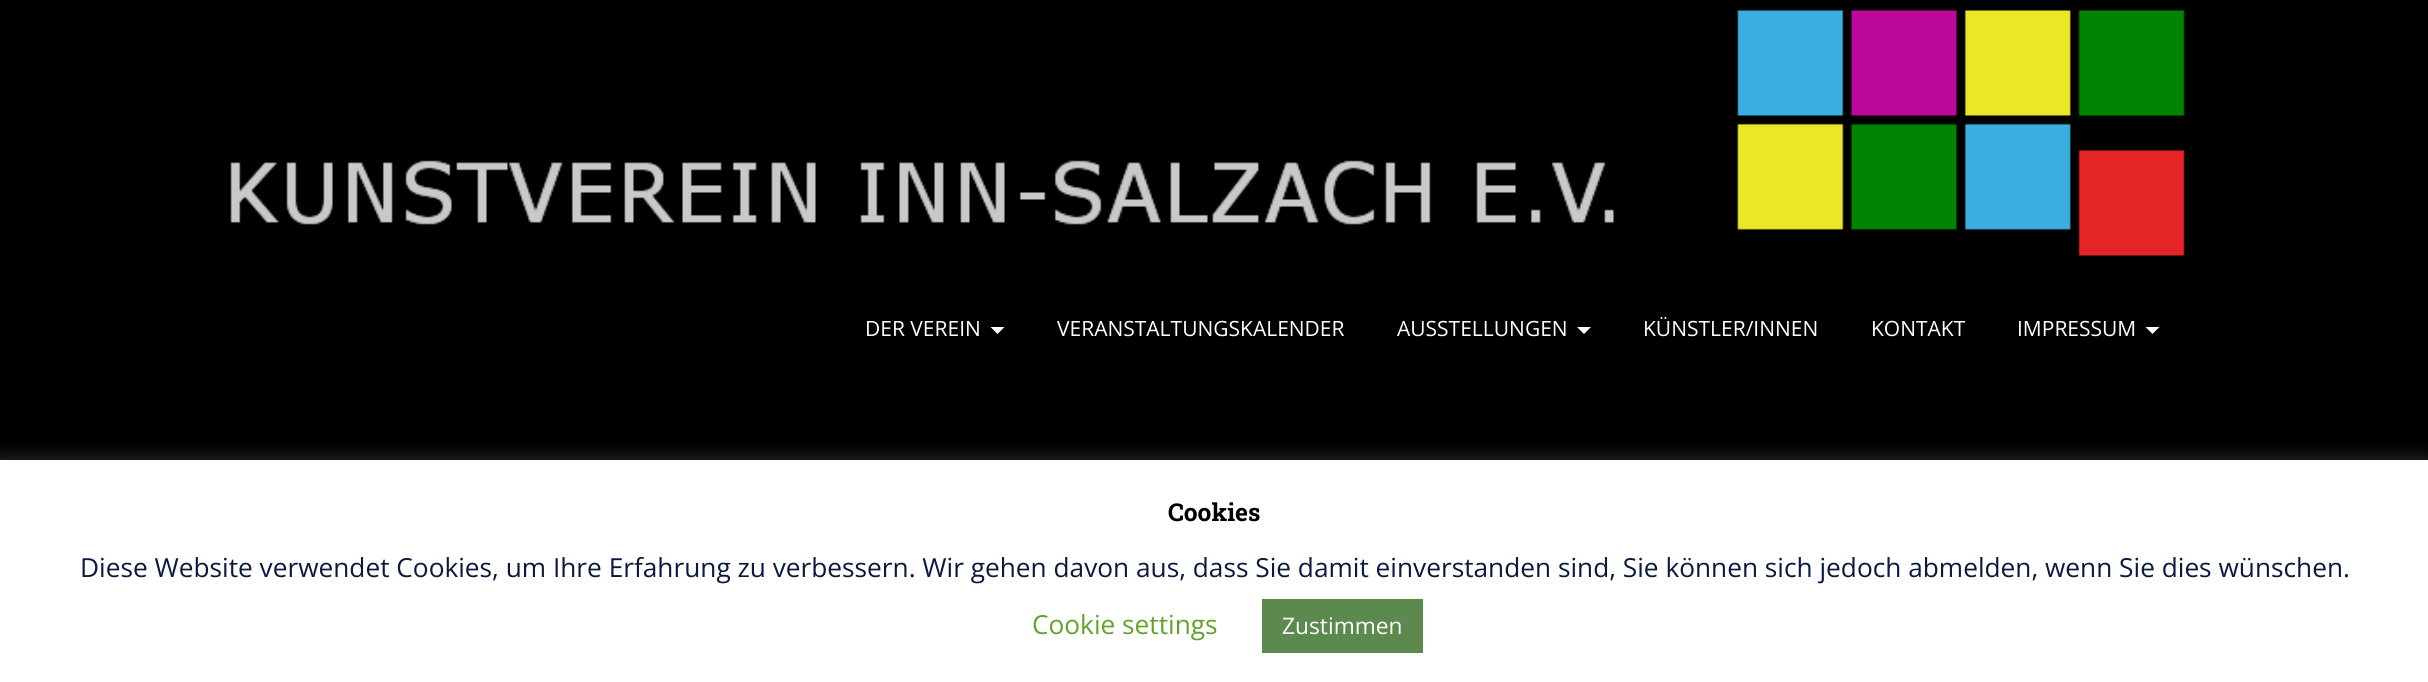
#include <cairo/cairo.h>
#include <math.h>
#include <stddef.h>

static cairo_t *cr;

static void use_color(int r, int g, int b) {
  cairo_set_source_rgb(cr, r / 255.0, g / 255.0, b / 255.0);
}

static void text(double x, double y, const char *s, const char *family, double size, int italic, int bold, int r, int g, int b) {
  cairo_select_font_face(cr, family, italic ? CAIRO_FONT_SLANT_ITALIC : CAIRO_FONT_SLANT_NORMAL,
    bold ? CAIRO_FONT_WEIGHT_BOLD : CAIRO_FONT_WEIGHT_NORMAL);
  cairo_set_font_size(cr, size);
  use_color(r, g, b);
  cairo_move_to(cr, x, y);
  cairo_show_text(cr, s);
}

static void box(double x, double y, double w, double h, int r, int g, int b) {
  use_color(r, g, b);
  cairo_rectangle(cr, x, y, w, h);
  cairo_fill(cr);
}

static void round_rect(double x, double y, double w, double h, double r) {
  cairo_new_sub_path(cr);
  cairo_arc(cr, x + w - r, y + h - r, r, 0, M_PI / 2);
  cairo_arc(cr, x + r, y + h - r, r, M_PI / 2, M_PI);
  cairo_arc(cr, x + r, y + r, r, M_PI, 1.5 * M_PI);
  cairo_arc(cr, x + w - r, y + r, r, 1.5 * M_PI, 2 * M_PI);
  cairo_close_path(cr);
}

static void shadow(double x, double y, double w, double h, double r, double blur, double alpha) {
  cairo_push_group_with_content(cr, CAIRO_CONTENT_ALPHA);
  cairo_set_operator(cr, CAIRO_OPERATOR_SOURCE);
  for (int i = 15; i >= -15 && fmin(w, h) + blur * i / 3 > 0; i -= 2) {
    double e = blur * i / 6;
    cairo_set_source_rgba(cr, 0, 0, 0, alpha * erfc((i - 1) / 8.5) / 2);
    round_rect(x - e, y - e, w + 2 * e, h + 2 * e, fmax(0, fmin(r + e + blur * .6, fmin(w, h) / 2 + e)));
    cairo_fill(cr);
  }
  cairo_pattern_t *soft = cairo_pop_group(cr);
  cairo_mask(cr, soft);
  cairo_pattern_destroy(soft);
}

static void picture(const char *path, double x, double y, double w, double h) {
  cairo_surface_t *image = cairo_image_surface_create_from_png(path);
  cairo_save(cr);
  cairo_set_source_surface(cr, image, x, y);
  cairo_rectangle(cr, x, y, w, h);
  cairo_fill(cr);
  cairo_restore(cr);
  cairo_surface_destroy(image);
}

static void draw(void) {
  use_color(0, 0, 0);
  cairo_paint(cr);
  picture("img_01.png", 230, 10, 1955, 246);
  use_color(255, 255, 255);
  cairo_new_path(cr);
  cairo_move_to(cr, 990.5, 327);
  cairo_line_to(cr, 1004.5, 327);
  cairo_line_to(cr, 997.5, 334);
  cairo_close_path(cr);
  cairo_fill(cr);
  cairo_new_path(cr);
  cairo_move_to(cr, 1577, 327);
  cairo_line_to(cr, 1591, 327);
  cairo_line_to(cr, 1584, 334);
  cairo_close_path(cr);
  cairo_fill(cr);
  cairo_new_path(cr);
  cairo_move_to(cr, 2145.5, 327);
  cairo_line_to(cr, 2159.5, 327);
  cairo_line_to(cr, 2152.5, 334);
  cairo_close_path(cr);
  cairo_fill(cr);
  use_color(172, 171, 171);
  shadow(0, 459, 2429, 222, 0, 9, 0.3);
  box(0, 460, 2428, 222, 255, 255, 255);
  box(1262, 599, 161, 54, 92, 137, 78);
  text(865, 336, "DER VEREIN", "Open Sans", 21, 0, 0, 255, 255, 255);
  text(1057, 336, "VERANSTALTUNGSKALENDER", "Open Sans", 21, 0, 0, 255, 255, 255);
  text(1397, 336, "AUSSTELLUNGEN", "Open Sans", 21, 0, 0, 255, 255, 255);
  text(1643, 336, "KÜNSTLER/INNEN", "Open Sans", 21, 0, 0, 255, 255, 255);
  text(1871, 336, "KONTAKT", "Open Sans", 21, 0, 0, 255, 255, 255);
  text(2017, 336, "IMPRESSUM", "Open Sans", 21, 0, 0, 255, 255, 255);
  text(1168, 521, "Cookies", "Roboto Slab", 24.5, 0, 1, 0, 0, 0);
  text(80, 577, "Diese Website verwendet Cookies, um Ihre Erfahrung zu verbessern. Wir gehen davon aus, dass Sie damit einverstanden sind, Sie können sich jedoch abmelden, wenn Sie dies wünschen.", "Open Sans", 26.25, 0, 0, 10, 26, 63);
  text(1032, 634, "Cookie settings", "Open Sans", 26.25, 0, 0, 98, 163, 41);
  text(1282, 634, "Zustimmen", "Open Sans", 22.75, 0, 0, 255, 255, 255);
}

int main(void) {
  cairo_surface_t *surface = cairo_image_surface_create(CAIRO_FORMAT_RGB24, 2428, 682);
  cr = cairo_create(surface);
  cairo_font_options_t *options = cairo_font_options_create();
  cairo_font_options_set_hint_metrics(options, CAIRO_HINT_METRICS_OFF);
  cairo_font_options_set_hint_style(options, CAIRO_HINT_STYLE_NONE);
  cairo_set_font_options(cr, options);
  cairo_set_miter_limit(cr, 4);
  draw();
  cairo_surface_write_to_png(surface, "out.png");
  cairo_font_options_destroy(options);
  cairo_destroy(cr);
  cairo_surface_destroy(surface);
  return 0;
}
